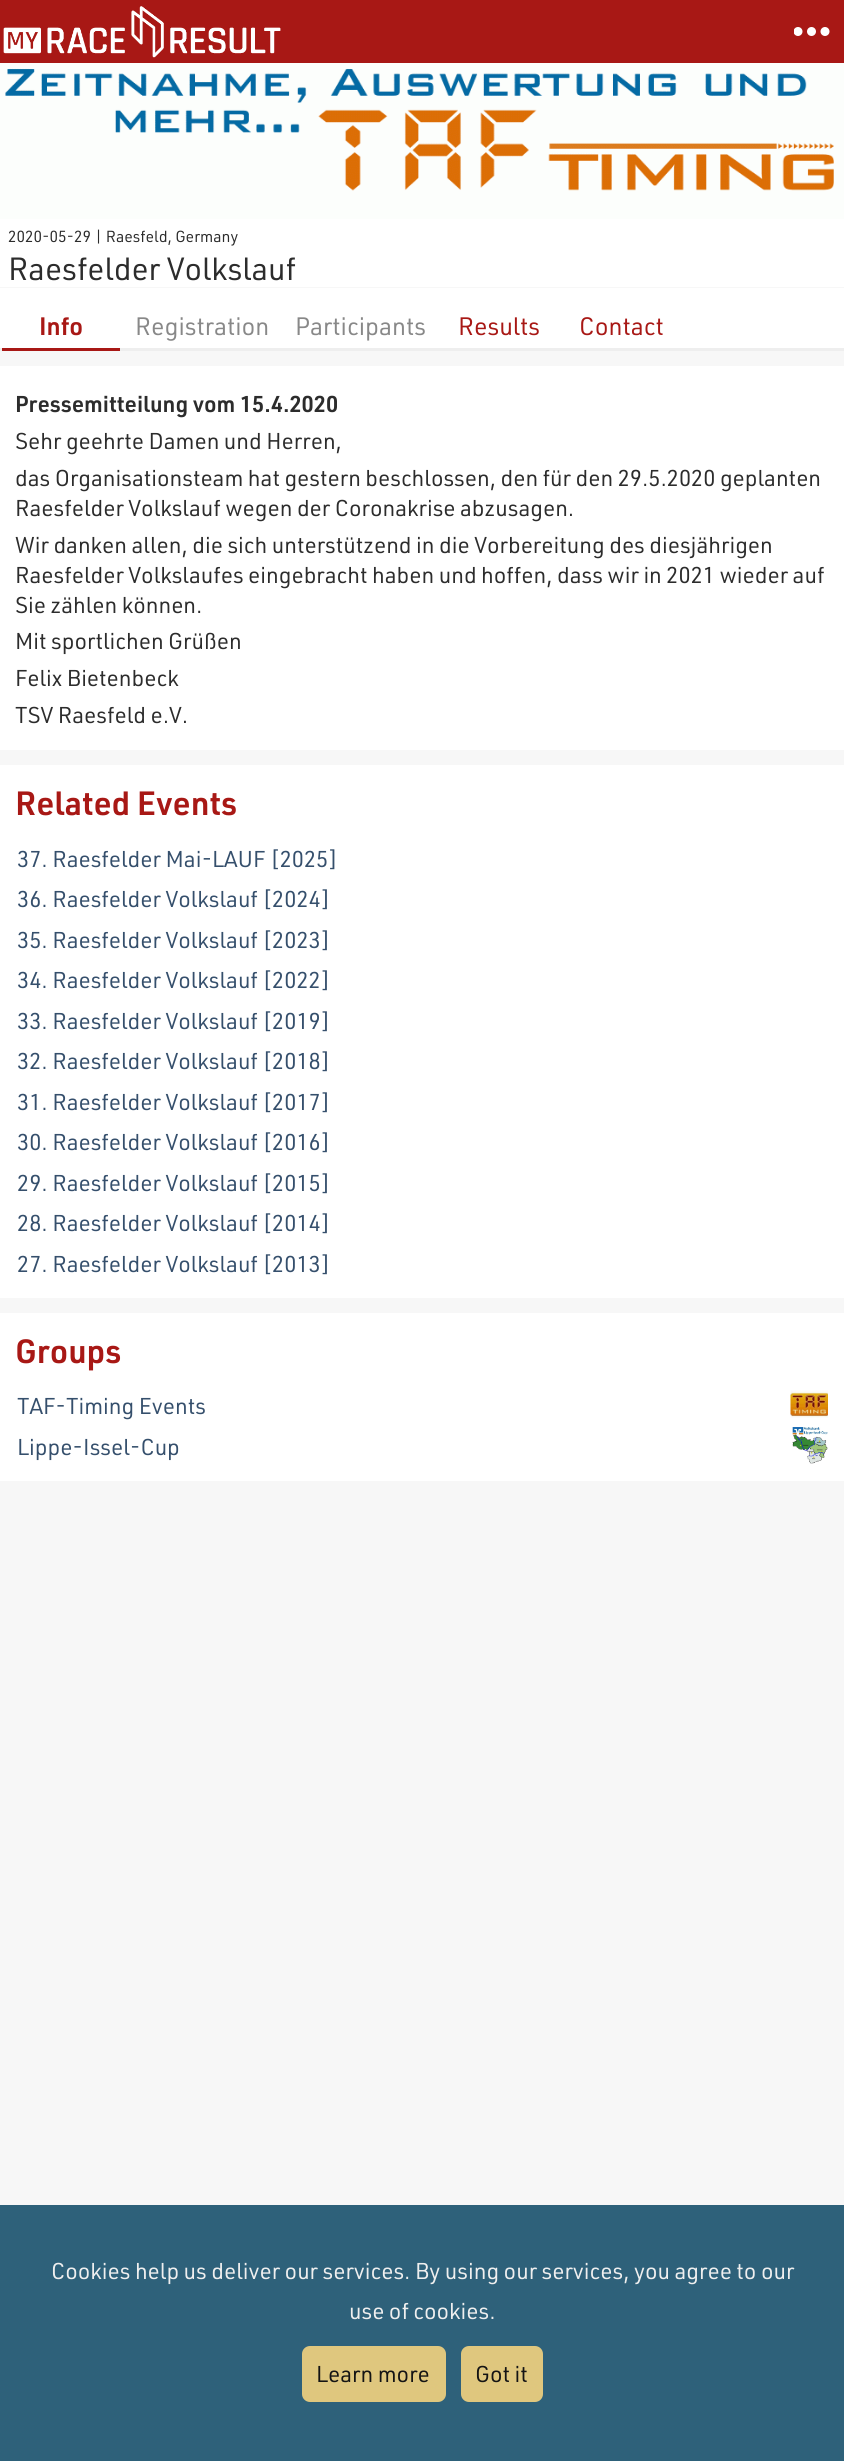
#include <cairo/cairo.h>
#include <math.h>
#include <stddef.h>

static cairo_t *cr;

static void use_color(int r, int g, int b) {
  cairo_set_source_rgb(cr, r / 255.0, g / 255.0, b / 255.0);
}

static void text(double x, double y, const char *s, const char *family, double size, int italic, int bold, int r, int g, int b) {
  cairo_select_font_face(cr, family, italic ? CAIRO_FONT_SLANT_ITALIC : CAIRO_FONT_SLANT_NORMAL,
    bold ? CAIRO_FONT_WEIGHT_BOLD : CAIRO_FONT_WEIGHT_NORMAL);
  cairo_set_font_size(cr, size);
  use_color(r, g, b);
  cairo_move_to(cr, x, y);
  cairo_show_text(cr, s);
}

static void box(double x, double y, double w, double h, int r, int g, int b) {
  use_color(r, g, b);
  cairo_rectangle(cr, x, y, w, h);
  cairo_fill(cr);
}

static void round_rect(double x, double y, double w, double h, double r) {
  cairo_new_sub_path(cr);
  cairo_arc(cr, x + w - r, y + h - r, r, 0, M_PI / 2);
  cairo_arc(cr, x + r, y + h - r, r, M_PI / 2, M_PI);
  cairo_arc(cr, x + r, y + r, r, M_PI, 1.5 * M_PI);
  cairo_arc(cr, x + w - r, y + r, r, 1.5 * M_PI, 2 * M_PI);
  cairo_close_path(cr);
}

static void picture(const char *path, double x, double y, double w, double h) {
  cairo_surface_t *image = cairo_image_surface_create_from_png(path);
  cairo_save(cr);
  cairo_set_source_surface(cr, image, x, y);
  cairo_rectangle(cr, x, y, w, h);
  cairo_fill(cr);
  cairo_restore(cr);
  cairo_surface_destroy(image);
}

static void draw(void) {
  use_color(247, 247, 247);
  cairo_paint(cr);
  box(0, 0, 844, 63, 168, 24, 21);
  picture("img_01.png", 3, 6, 278, 52);
  picture("img_02.png", 794, 27, 36, 9);
  picture("img_03.png", 0, 63, 844, 156);
  box(0, 219, 844, 68, 255, 255, 255);
  box(0, 288, 844, 60, 255, 255, 255);
  box(0, 348, 844, 3, 238, 238, 238);
  box(2, 348, 118, 3, 168, 24, 21);
  box(0, 366, 844, 384, 255, 255, 255);
  box(0, 765, 844, 533, 255, 255, 255);
  box(0, 1313, 844, 168, 255, 255, 255);
  picture("img_04.png", 790, 1390, 38, 28);
  picture("img_05.png", 792, 1427, 36, 37);
  box(0, 2205, 844, 256, 46, 97, 122);
  use_color(223, 199, 126);
  round_rect(302, 2346, 144, 56, 8);
  cairo_fill(cr);
  round_rect(461, 2346, 82, 56, 8);
  cairo_fill(cr);
  text(8, 242, "2020-05-29 | Raesfeld, Germany", "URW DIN", 15.75, 0, 0, 44, 44, 44);
  text(8, 280, "Raesfelder Volkslauf", "URW DIN", 31.5, 0, 0, 44, 44, 44);
  text(39, 335, "Info", "URW DIN SemiBold", 24.75, 0, 0, 168, 24, 21);
  text(135, 335, "Registration", "URW DIN", 24.75, 0, 0, 136, 136, 136);
  text(295, 335, "Participants", "URW DIN", 24.75, 0, 0, 136, 136, 136);
  text(458, 335, "Results", "URW DIN", 24.75, 0, 0, 168, 24, 21);
  text(579, 335, "Contact", "URW DIN", 24.75, 0, 0, 168, 24, 21);
  text(15, 412, "Pressemitteilung vom 15.4.2020", "URW DIN SemiBold", 22.5, 0, 0, 44, 44, 44);
  text(15, 449, "Sehr geehrte Damen und Herren,", "URW DIN", 22.5, 0, 0, 44, 44, 44);
  text(15, 486, "das Organisationsteam hat gestern beschlossen, den für den 29.5.2020 geplanten", "URW DIN", 22.5, 0, 0, 44, 44, 44);
  text(15, 516, "Raesfelder Volkslauf wegen der Coronakrise abzusagen.", "URW DIN", 22.5, 0, 0, 44, 44, 44);
  text(15, 553, "Wir danken allen, die sich unterstützend in die Vorbereitung des diesjährigen", "URW DIN", 22.5, 0, 0, 44, 44, 44);
  text(15, 583, "Raesfelder Volkslaufes eingebracht haben und hoffen, dass wir in 2021 wieder auf", "URW DIN", 22.5, 0, 0, 44, 44, 44);
  text(15, 613, "Sie zählen können.", "URW DIN", 22.5, 0, 0, 44, 44, 44);
  text(15, 649, "Mit sportlichen Grüßen", "URW DIN", 22.5, 0, 0, 44, 44, 44);
  text(15, 686, "Felix Bietenbeck", "URW DIN", 22.5, 0, 0, 44, 44, 44);
  text(15, 723, "TSV Raesfeld e.V.", "URW DIN", 22.5, 0, 0, 44, 44, 44);
  text(15, 815, "Related Events", "URW DIN SemiBold", 33, 0, 0, 168, 24, 21);
  text(17, 867, "37. Raesfelder Mai-LAUF [2025]", "URW DIN", 22.5, 0, 0, 53, 79, 108);
  text(17, 907, "36. Raesfelder Volkslauf [2024]", "URW DIN", 22.5, 0, 0, 53, 79, 108);
  text(17, 948, "35. Raesfelder Volkslauf [2023]", "URW DIN", 22.5, 0, 0, 53, 79, 108);
  text(17, 988, "34. Raesfelder Volkslauf [2022]", "URW DIN", 22.5, 0, 0, 53, 79, 108);
  text(17, 1029, "33. Raesfelder Volkslauf [2019]", "URW DIN", 22.5, 0, 0, 53, 79, 108);
  text(17, 1069, "32. Raesfelder Volkslauf [2018]", "URW DIN", 22.5, 0, 0, 53, 79, 108);
  text(17, 1110, "31. Raesfelder Volkslauf [2017]", "URW DIN", 22.5, 0, 0, 53, 79, 108);
  text(17, 1150, "30. Raesfelder Volkslauf [2016]", "URW DIN", 22.5, 0, 0, 53, 79, 108);
  text(17, 1191, "29. Raesfelder Volkslauf [2015]", "URW DIN", 22.5, 0, 0, 53, 79, 108);
  text(17, 1231, "28. Raesfelder Volkslauf [2014]", "URW DIN", 22.5, 0, 0, 53, 79, 108);
  text(17, 1272, "27. Raesfelder Volkslauf [2013]", "URW DIN", 22.5, 0, 0, 53, 79, 108);
  text(15, 1363, "Groups", "URW DIN SemiBold", 33, 0, 0, 168, 24, 21);
  text(17, 1414, "TAF-Timing Events", "URW DIN", 22.5, 0, 0, 53, 79, 108);
  text(17, 1455, "Lippe-Issel-Cup", "URW DIN", 22.5, 0, 0, 53, 79, 108);
  text(51, 2279, "Cookies help us deliver our services. By using our services, you agree to our", "URW DIN", 22.5, 0, 0, 239, 239, 239);
  text(349, 2319, "use of cookies.", "URW DIN", 22.5, 0, 0, 239, 239, 239);
  text(316, 2382, "Learn more", "URW DIN", 22.5, 0, 0, 20, 20, 20);
  text(475, 2382, "Got it", "URW DIN", 22.5, 0, 0, 20, 20, 20);
}

int main(void) {
  cairo_surface_t *surface = cairo_image_surface_create(CAIRO_FORMAT_RGB24, 844, 2461);
  cr = cairo_create(surface);
  cairo_font_options_t *options = cairo_font_options_create();
  cairo_font_options_set_hint_metrics(options, CAIRO_HINT_METRICS_OFF);
  cairo_font_options_set_hint_style(options, CAIRO_HINT_STYLE_NONE);
  cairo_set_font_options(cr, options);
  cairo_set_miter_limit(cr, 4);
  draw();
  cairo_surface_write_to_png(surface, "out.png");
  cairo_font_options_destroy(options);
  cairo_destroy(cr);
  cairo_surface_destroy(surface);
  return 0;
}
